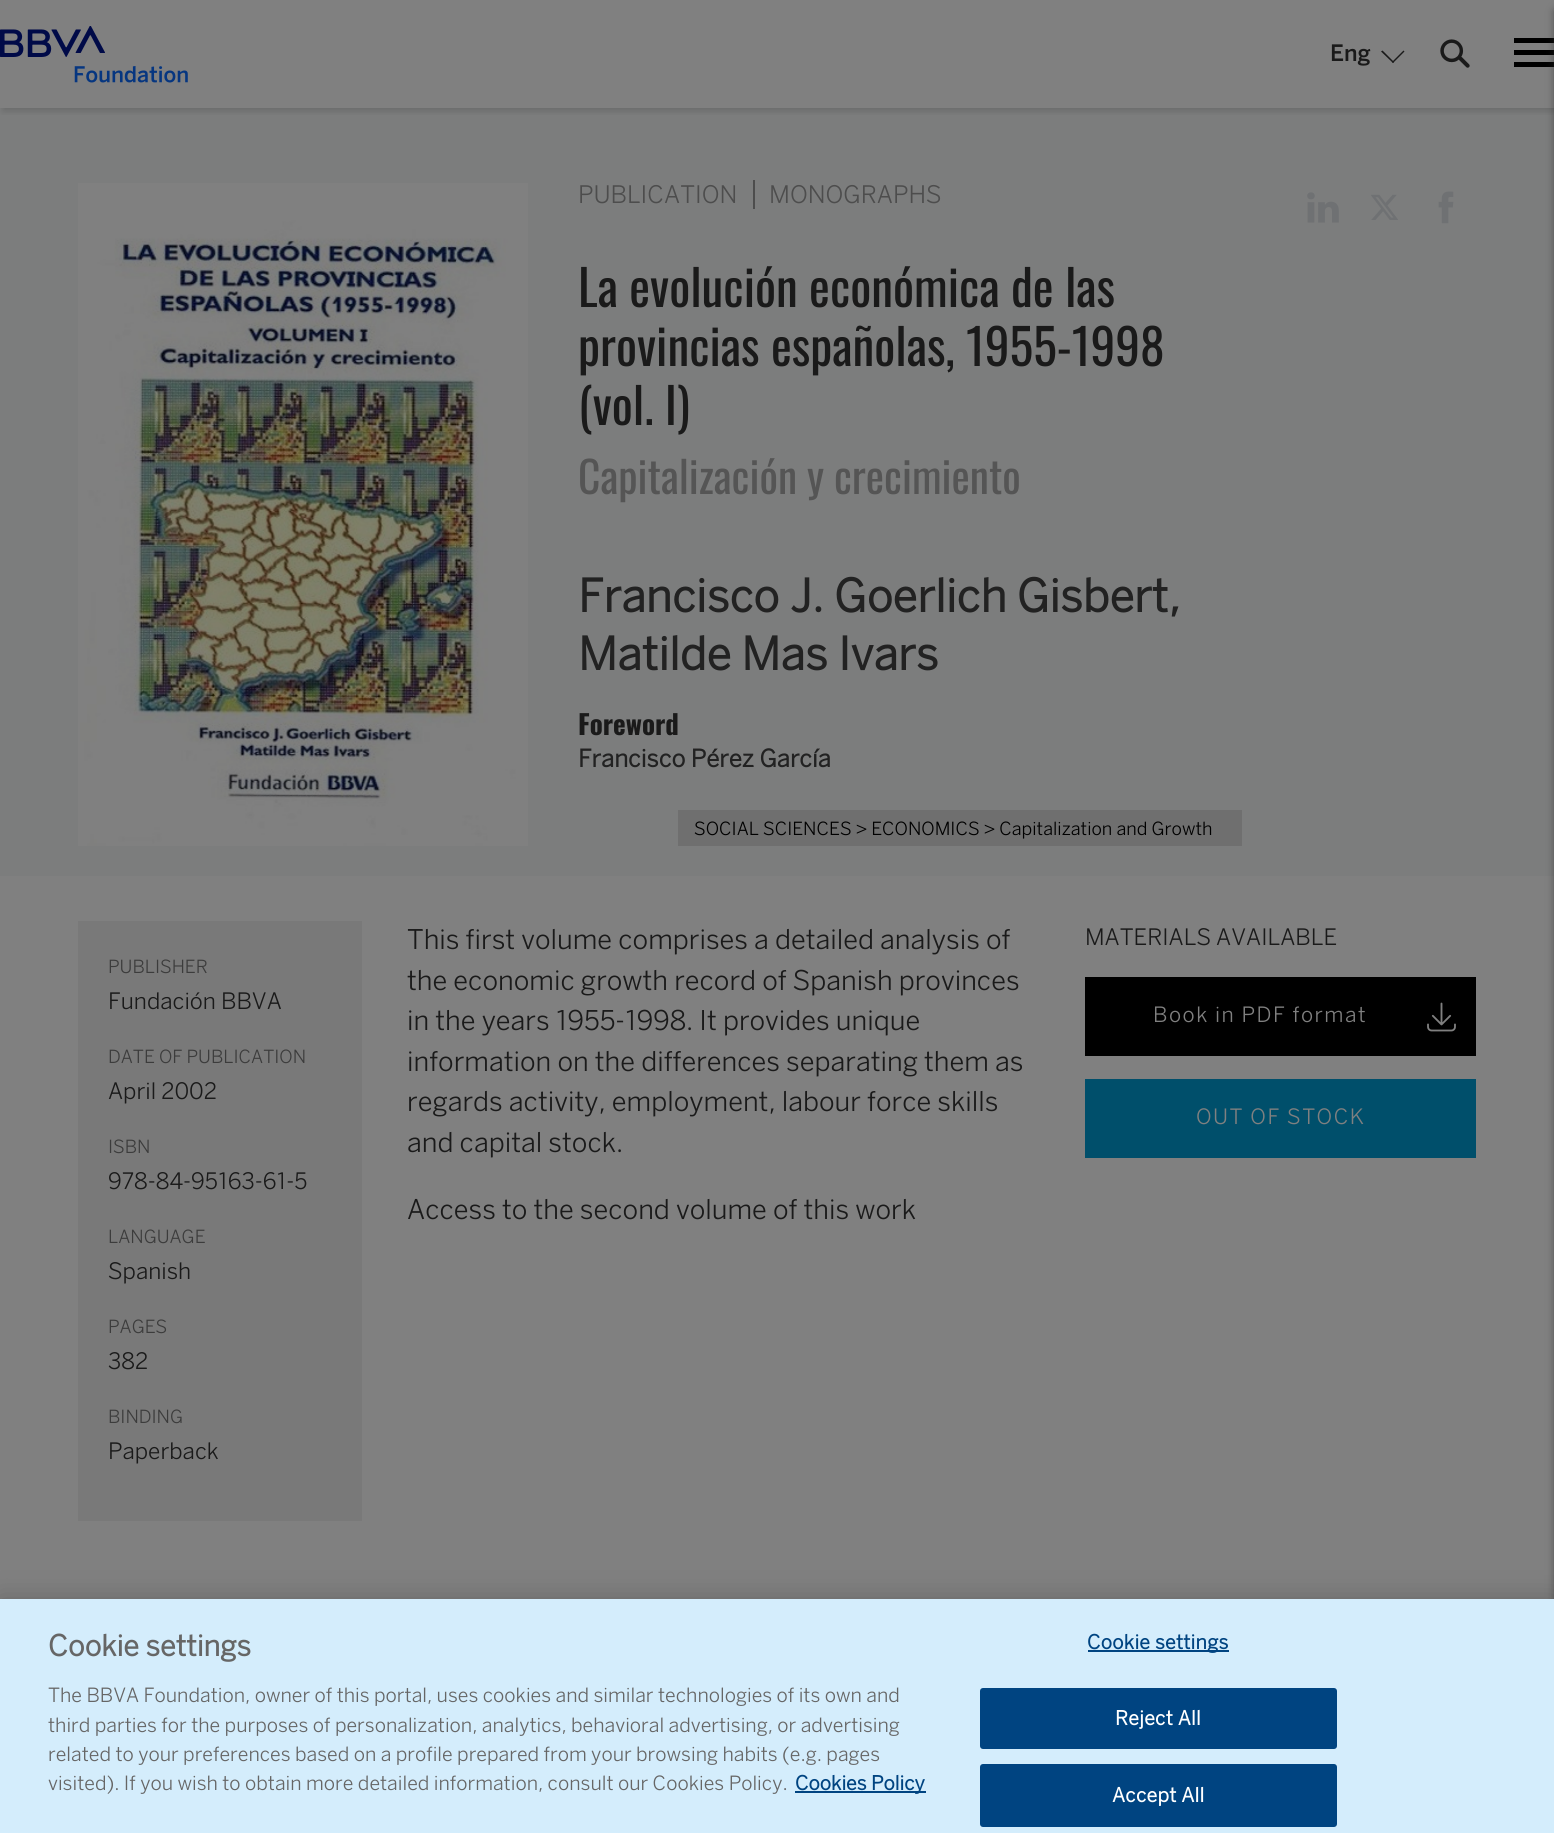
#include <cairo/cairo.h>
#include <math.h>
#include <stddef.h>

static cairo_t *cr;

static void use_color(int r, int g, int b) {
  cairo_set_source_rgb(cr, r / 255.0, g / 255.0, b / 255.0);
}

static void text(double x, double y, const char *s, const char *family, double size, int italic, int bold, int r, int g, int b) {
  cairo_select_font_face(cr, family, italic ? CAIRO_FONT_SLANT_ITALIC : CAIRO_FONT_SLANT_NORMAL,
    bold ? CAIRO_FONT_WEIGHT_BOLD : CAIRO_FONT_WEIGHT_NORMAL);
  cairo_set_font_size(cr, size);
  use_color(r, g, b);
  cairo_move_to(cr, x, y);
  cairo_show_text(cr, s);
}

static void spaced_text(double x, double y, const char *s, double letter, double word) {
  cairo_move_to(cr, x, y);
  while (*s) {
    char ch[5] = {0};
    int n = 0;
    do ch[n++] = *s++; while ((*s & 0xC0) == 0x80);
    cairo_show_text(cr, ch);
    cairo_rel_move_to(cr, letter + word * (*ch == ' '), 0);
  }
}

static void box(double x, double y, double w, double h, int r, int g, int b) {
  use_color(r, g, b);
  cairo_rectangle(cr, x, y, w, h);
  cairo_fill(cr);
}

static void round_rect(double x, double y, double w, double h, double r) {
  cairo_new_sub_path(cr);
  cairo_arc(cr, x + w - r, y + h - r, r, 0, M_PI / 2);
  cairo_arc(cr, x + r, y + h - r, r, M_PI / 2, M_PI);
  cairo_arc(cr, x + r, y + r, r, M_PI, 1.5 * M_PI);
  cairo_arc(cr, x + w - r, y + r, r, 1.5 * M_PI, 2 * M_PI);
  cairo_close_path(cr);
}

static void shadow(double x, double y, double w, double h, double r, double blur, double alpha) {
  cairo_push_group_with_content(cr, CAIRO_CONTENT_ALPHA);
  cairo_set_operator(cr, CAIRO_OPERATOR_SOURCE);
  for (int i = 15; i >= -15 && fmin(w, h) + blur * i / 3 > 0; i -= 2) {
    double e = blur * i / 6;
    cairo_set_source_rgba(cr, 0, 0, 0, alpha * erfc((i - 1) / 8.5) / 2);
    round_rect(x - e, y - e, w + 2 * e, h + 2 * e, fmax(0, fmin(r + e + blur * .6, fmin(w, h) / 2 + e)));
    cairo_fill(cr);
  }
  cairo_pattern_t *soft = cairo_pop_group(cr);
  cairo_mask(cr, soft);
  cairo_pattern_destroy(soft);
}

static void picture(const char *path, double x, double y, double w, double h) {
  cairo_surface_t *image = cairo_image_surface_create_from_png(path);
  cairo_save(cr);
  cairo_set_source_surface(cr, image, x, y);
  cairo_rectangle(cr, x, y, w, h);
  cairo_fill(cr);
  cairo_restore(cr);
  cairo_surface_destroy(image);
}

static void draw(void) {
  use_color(128, 128, 128);
  cairo_paint(cr);
  box(0, 108, 1554, 768, 124, 125, 125);
  cairo_save(cr);
  cairo_rectangle(cr, 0, 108, 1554, 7);
  cairo_clip(cr);
  use_color(0, 0, 0);
  shadow(3, 3, 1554, 108, 0, 4, 0.15);
  cairo_restore(cr);
  picture("img_01.png", 0, 26, 188, 57);
  use_color(26, 26, 26);
  cairo_new_path(cr);
  cairo_move_to(cr, 1392, 62);
  cairo_line_to(cr, 1403.5, 50.5);
  cairo_line_to(cr, 1404.5, 51.5);
  cairo_line_to(cr, 1393, 63);
  cairo_close_path(cr);
  cairo_fill(cr);
  cairo_new_path(cr);
  cairo_move_to(cr, 1381, 51.5);
  cairo_line_to(cr, 1382.5, 50.5);
  cairo_line_to(cr, 1394, 62);
  cairo_line_to(cr, 1393, 63);
  cairo_close_path(cr);
  cairo_fill(cr);
  picture("img_02.png", 1440, 39, 30, 29);
  box(1514, 38, 40, 5, 0, 0, 0);
  box(1514, 50, 40, 5, 0, 0, 0);
  box(1514, 62, 40, 5, 0, 0, 0);
  picture("img_03.png", 78, 183, 450, 663);
  box(753, 180, 2, 29, 77, 77, 77);
  box(678, 810, 564, 36, 111, 111, 111);
  picture("img_04.png", 1307, 192, 32, 31);
  picture("img_05.png", 1371, 194, 27, 26);
  picture("img_06.png", 1438, 191, 16, 33);
  box(78, 921, 284, 600, 121, 121, 121);
  box(1085, 977, 391, 79, 0, 0, 0);
  picture("img_07.png", 1427, 1002, 29, 30);
  box(1085, 1079, 391, 79, 0, 79, 107);
  use_color(43, 43, 43);
  shadow(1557, 11, 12, 1812, 0, 5, 1);
  use_color(0, 0, 0);
  shadow(0, 1599, 1554, 234, 0, 13.5, 0.2);
  box(0, 1599, 1554, 234, 212, 237, 252);
  box(795, 1791, 131, 2, 0, 68, 129);
  box(1088, 1650, 141, 2, 0, 68, 129);
  round_rect(981, 1689, 355, 59, 2);
  cairo_fill_preserve(cr);
  cairo_stroke(cr);
  round_rect(981, 1765, 355, 61, 2);
  cairo_fill_preserve(cr);
  cairo_stroke(cr);
  text(1330, 61, "Eng", "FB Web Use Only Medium", 22.5, 0, 0, 26, 26, 26);
  text(578, 203, "PUBLICATION", "FB Web Use Only Light", 24, 0, 0, 77, 77, 77);
  text(769, 203, "MONOGRAPHS", "FB Web Use Only Light", 24, 0, 0, 77, 77, 77);
  text(578, 307, "La evolución económica de las", "Oswald", 49.5, 0, 0, 26, 26, 26);
  text(578, 366, "provincias españolas, 1955-1998", "Oswald", 49.5, 0, 0, 26, 26, 26);
  text(578, 425, "(vol. I)", "Oswald", 49.5, 0, 0, 26, 26, 26);
  text(578, 494, "Capitalización y crecimiento", "Oswald", 43.5, 0, 0, 85, 85, 85);
  text(578, 612, "Francisco J. Goerlich Gisbert,", "FB Web Use Only", 45, 0, 1, 34, 34, 34);
  text(578, 670, "Matilde Mas Ivars", "FB Web Use Only", 45, 0, 1, 34, 34, 34);
  text(578, 735, "Foreword", "Oswald", 27, 0, 1, 26, 26, 26);
  text(578, 767, "Francisco Pérez García", "FB Web Use Only", 24, 0, 1, 34, 34, 34);
  text(694, 835, "SOCIAL SCIENCES > ECONOMICS > Capitalization and Growth", "FB Web Use Only Light", 18, 0, 0, 0, 0, 0);
  text(108, 973, "PUBLISHER", "FB Web Use Only Light", 18, 0, 0, 60, 60, 60);
  text(108, 1009, "Fundación BBVA", "FB Web Use Only Light", 22.5, 0, 0, 26, 26, 26);
  text(108, 1063, "DATE OF PUBLICATION", "FB Web Use Only Light", 18, 0, 0, 60, 60, 60);
  text(108, 1099, "April 2002", "FB Web Use Only Light", 22.5, 0, 0, 26, 26, 26);
  text(108, 1153, "ISBN", "FB Web Use Only Light", 18, 0, 0, 60, 60, 60);
  text(108, 1189, "978-84-95163-61-5", "FB Web Use Only Light", 22.5, 0, 0, 26, 26, 26);
  text(108, 1243, "LANGUAGE", "FB Web Use Only Light", 18, 0, 0, 60, 60, 60);
  text(108, 1279, "Spanish", "FB Web Use Only Light", 22.5, 0, 0, 26, 26, 26);
  text(108, 1333, "PAGES", "FB Web Use Only Light", 18, 0, 0, 60, 60, 60);
  text(108, 1369, "382", "FB Web Use Only Light", 22.5, 0, 0, 26, 26, 26);
  text(108, 1423, "BINDING", "FB Web Use Only Light", 18, 0, 0, 60, 60, 60);
  text(108, 1459, "Paperback", "FB Web Use Only Light", 22.5, 0, 0, 26, 26, 26);
  text(407, 949, "This first volume comprises a detailed analysis of", "FB Web Use Only Light", 27, 0, 0, 26, 26, 26);
  text(407, 990, "the economic growth record of Spanish provinces", "FB Web Use Only Light", 27, 0, 0, 26, 26, 26);
  text(407, 1030, "in the years 1955-1998. It provides unique", "FB Web Use Only Light", 27, 0, 0, 26, 26, 26);
  text(407, 1071, "information on the differences separating them as", "FB Web Use Only Light", 27, 0, 0, 26, 26, 26);
  text(407, 1111, "regards activity, employment, labour force skills", "FB Web Use Only Light", 27, 0, 0, 26, 26, 26);
  text(407, 1152, "and capital stock.", "FB Web Use Only Light", 27, 0, 0, 26, 26, 26);
  text(407, 1219, "Access to the second volume of this work", "FB Web Use Only Light", 27, 0, 0, 26, 26, 26);
  text(1085, 945, "MATERIALS AVAILABLE", "FB Web Use Only Light", 22.5, 0, 0, 26, 26, 26);
  cairo_set_font_size(cr, 21);
  use_color(128, 128, 128);
  spaced_text(1153, 1022, "Book in PDF format", 1.5, 0);
  spaced_text(1196, 1124, "OUT OF STOCK", 1.5, 0);
  text(48, 1656, "Cookie settings", "FB Web Use Only", 28.75, 0, 1, 102, 102, 102);
  text(48, 1702, "The BBVA Foundation, owner of this portal, uses cookies and similar technologies of its own and", "FB Web Use Only Light", 19.5, 0, 0, 102, 102, 102);
  text(48, 1732, "third parties for the purposes of personalization, analytics, behavioral advertising, or advertising", "FB Web Use Only Light", 19.5, 0, 0, 102, 102, 102);
  text(48, 1761, "related to your preferences based on a profile prepared from your browsing habits (e.g. pages", "FB Web Use Only Light", 19.5, 0, 0, 102, 102, 102);
  text(48, 1790, "visited). If you wish to obtain more detailed information, consult our Cookies Policy.", "FB Web Use Only Light", 19.5, 0, 0, 102, 102, 102);
  text(795, 1790, "Cookies Policy", "FB Web Use Only", 19.5, 0, 1, 0, 68, 129);
  spaced_text(1087, 1649, "Cookie settings", 0.25, 0);
  use_color(255, 255, 255);
  spaced_text(1115, 1725, "Reject All", 0.25, 0);
  spaced_text(1112, 1802, "Accept All", 0.25, 0);
}

int main(void) {
  cairo_surface_t *surface = cairo_image_surface_create(CAIRO_FORMAT_RGB24, 1554, 1833);
  cr = cairo_create(surface);
  cairo_font_options_t *options = cairo_font_options_create();
  cairo_font_options_set_hint_metrics(options, CAIRO_HINT_METRICS_OFF);
  cairo_font_options_set_hint_style(options, CAIRO_HINT_STYLE_NONE);
  cairo_set_font_options(cr, options);
  cairo_set_miter_limit(cr, 4);
  draw();
  cairo_surface_write_to_png(surface, "out.png");
  cairo_font_options_destroy(options);
  cairo_destroy(cr);
  cairo_surface_destroy(surface);
  return 0;
}
